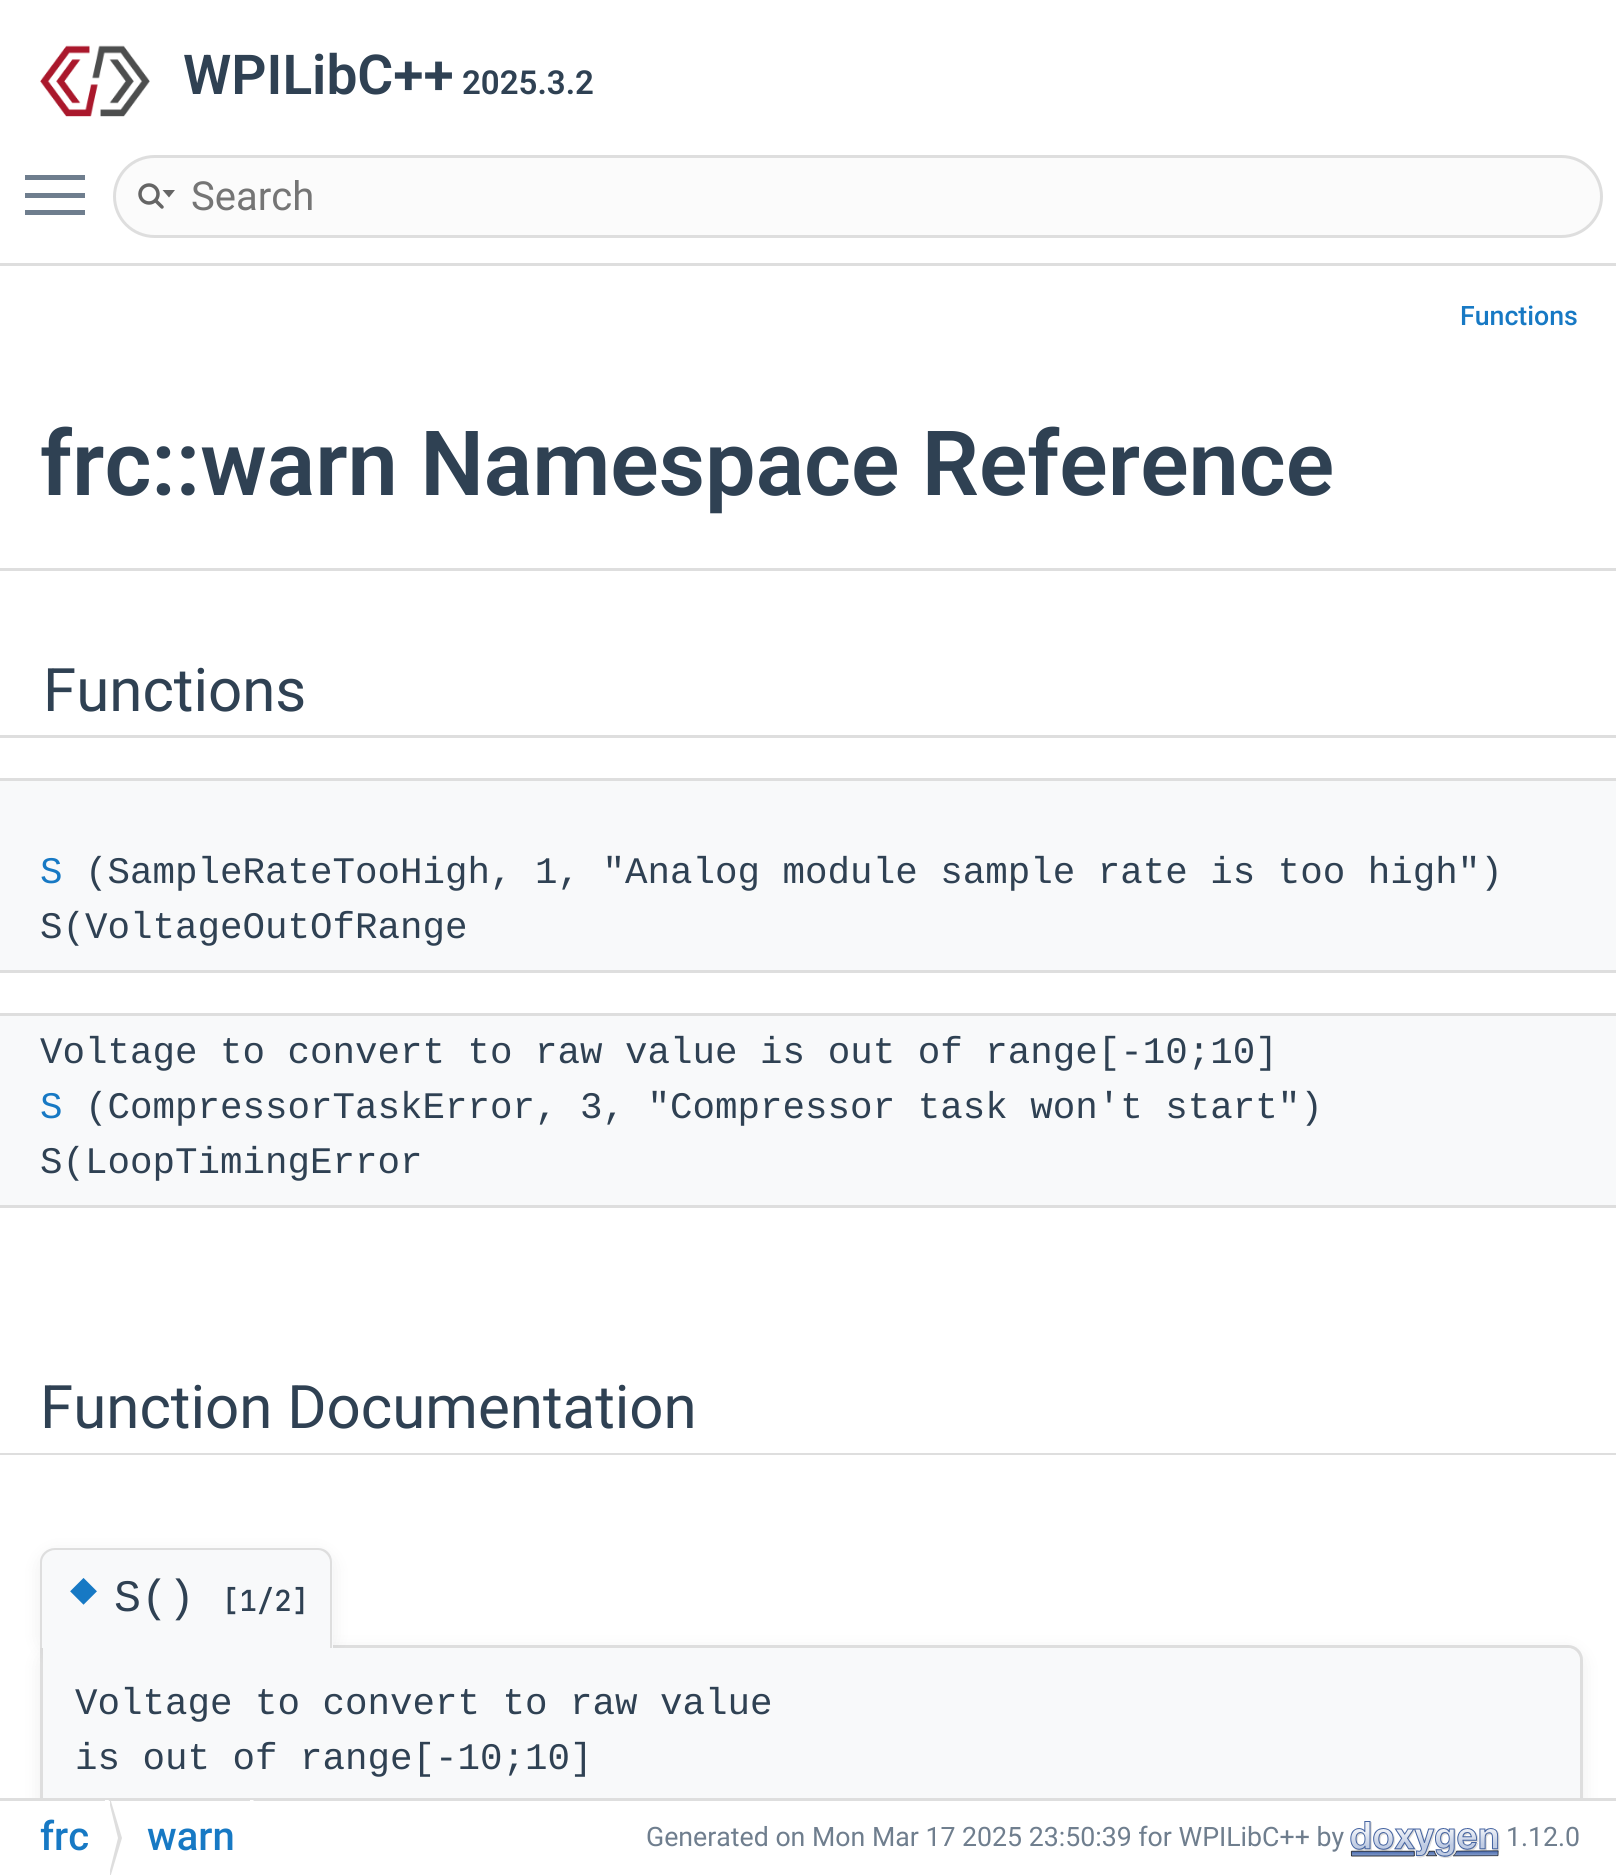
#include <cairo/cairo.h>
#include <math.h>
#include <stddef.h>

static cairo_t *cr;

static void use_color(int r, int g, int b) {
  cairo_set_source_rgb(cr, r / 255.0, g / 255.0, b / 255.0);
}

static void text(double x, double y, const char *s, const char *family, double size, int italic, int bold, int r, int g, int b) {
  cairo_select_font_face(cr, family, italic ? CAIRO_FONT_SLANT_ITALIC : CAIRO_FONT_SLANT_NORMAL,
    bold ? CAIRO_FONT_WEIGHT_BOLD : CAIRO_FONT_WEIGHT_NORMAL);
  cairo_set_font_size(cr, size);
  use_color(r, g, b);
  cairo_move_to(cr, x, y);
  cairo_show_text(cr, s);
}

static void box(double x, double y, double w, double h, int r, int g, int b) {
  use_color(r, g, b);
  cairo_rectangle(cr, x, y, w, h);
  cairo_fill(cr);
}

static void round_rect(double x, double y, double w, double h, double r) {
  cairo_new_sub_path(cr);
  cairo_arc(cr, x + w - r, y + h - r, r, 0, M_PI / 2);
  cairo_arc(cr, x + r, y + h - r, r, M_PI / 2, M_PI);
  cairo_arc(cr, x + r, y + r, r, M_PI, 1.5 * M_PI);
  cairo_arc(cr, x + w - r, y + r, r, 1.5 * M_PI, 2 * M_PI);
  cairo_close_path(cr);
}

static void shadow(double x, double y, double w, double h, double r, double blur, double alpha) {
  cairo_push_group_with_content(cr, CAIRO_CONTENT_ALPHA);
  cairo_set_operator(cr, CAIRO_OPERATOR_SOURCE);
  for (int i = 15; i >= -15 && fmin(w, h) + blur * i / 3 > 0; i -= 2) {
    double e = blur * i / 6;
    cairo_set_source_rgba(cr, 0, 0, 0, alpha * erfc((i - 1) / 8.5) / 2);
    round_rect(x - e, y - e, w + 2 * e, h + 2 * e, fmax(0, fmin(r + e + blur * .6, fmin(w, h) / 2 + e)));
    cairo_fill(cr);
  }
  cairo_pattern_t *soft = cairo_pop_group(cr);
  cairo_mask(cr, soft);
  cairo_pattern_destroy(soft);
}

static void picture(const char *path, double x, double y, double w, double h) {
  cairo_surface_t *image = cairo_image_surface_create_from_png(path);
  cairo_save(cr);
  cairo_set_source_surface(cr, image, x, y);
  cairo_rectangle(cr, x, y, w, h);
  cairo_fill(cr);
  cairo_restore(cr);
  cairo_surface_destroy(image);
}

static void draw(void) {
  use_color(255, 255, 255);
  cairo_paint(cr);
  box(0, 263, 1616, 3, 222, 222, 222);
  picture("img_01.png", 40, 45, 110, 72);
  box(25, 193, 60, 5, 111, 126, 142);
  box(25, 175, 60, 5, 111, 126, 142);
  box(25, 210, 60, 5, 111, 126, 142);
  use_color(251, 251, 251);
  round_rect(114.5, 156.5, 1487, 80, 40);
  cairo_fill_preserve(cr);
  use_color(222, 222, 222);
  cairo_set_line_width(cr, 3);
  cairo_stroke(cr);
  cairo_arc(cr, 149, 194, 9, 0, 2 * M_PI);
  use_color(101, 101, 101);
  cairo_set_line_width(cr, 3.5);
  cairo_stroke(cr);
  cairo_new_path(cr);
  cairo_move_to(cr, 162.5, 190);
  cairo_line_to(cr, 169, 197.5);
  cairo_line_to(cr, 175, 190);
  cairo_close_path(cr);
  cairo_fill(cr);
  cairo_new_path(cr);
  cairo_move_to(cr, 155.5, 200.5);
  cairo_line_to(cr, 162, 207);
  cairo_set_line_cap(cr, CAIRO_LINE_CAP_ROUND);
  cairo_stroke(cr);
  box(0, 568, 1616, 3, 222, 222, 222);
  cairo_new_path(cr);
  cairo_move_to(cr, -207, 638);
  cairo_line_to(cr, -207, 738);
  cairo_line_to(cr, 1325, 738);
  cairo_line_to(cr, 1325, 735);
  cairo_line_to(cr, 42, 735);
  cairo_line_to(cr, 42, 638);
  cairo_close_path(cr);
  cairo_fill(cr);
  cairo_new_path(cr);
  cairo_move_to(cr, 293, 735);
  cairo_line_to(cr, 293, 738);
  cairo_line_to(cr, 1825, 738);
  cairo_line_to(cr, 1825, 638);
  cairo_line_to(cr, 1575, 638);
  cairo_line_to(cr, 1575, 735);
  cairo_close_path(cr);
  cairo_fill(cr);
  box(0, 638, 42, 97, 255, 255, 255);
  box(1575, 638, 41, 97, 255, 255, 255);
  box(0, 781, 1616, 189, 248, 249, 250);
  box(0, 778, 1616, 3, 222, 222, 222);
  box(0, 970, 1616, 3, 222, 222, 222);
  box(0, 1016, 1616, 189, 248, 249, 250);
  box(0, 1013, 1616, 3, 222, 222, 222);
  box(0, 1205, 1616, 3, 222, 222, 222);
  cairo_new_path(cr);
  cairo_move_to(cr, -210, 1355);
  cairo_line_to(cr, -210, 1455);
  cairo_line_to(cr, 1328, 1455);
  cairo_line_to(cr, 1328, 1452);
  cairo_line_to(cr, 40, 1452);
  cairo_line_to(cr, 40, 1355);
  cairo_close_path(cr);
  cairo_fill(cr);
  cairo_new_path(cr);
  cairo_move_to(cr, 290, 1452);
  cairo_line_to(cr, 290, 1455);
  cairo_line_to(cr, 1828, 1455);
  cairo_line_to(cr, 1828, 1355);
  cairo_line_to(cr, 1578, 1355);
  cairo_line_to(cr, 1578, 1452);
  cairo_close_path(cr);
  cairo_fill(cr);
  use_color(255, 255, 255);
  cairo_new_path(cr);
  cairo_move_to(cr, -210, 1353);
  cairo_line_to(cr, -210, 1453);
  cairo_line_to(cr, 1328, 1453);
  cairo_line_to(cr, 1328, 1452);
  cairo_line_to(cr, 40, 1452);
  cairo_line_to(cr, 40, 1353);
  cairo_close_path(cr);
  cairo_fill(cr);
  cairo_new_path(cr);
  cairo_move_to(cr, 290, 1452);
  cairo_line_to(cr, 290, 1453);
  cairo_line_to(cr, 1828, 1453);
  cairo_line_to(cr, 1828, 1353);
  cairo_line_to(cr, 1578, 1353);
  cairo_line_to(cr, 1578, 1452);
  cairo_close_path(cr);
  cairo_fill(cr);
  cairo_save(cr);
  cairo_rectangle(cr, 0, 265, 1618, 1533);
  cairo_clip(cr);
  use_color(0, 0, 0);
  shadow(40, 1650, 1543, 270, 15, 10, 0.07);
  cairo_restore(cr);
  cairo_save(cr);
  cairo_rectangle(cr, 0, 265, 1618, 1533);
  cairo_clip(cr);
  cairo_new_path(cr);
  cairo_move_to(cr, 41.5, 1646.5);
  cairo_line_to(cr, 1568, 1646.5);
  cairo_curve_to(cr, 1575.5, 1646.5, 1581.5, 1652.5, 1581.5, 1660);
  cairo_line_to(cr, 1581.5, 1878);
  cairo_curve_to(cr, 1581.5, 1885.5, 1575.5, 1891.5, 1568, 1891.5);
  cairo_line_to(cr, 55, 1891.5);
  cairo_curve_to(cr, 47.5, 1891.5, 41.5, 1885.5, 41.5, 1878);
  cairo_close_path(cr);
  use_color(222, 222, 222);
  cairo_set_line_width(cr, 3);
  cairo_set_line_cap(cr, CAIRO_LINE_CAP_BUTT);
  cairo_stroke(cr);
  cairo_restore(cr);
  use_color(248, 249, 250);
  cairo_new_path(cr);
  cairo_move_to(cr, 43, 1648);
  cairo_line_to(cr, 1567, 1648);
  cairo_curve_to(cr, 1574, 1648, 1580, 1654, 1580, 1661);
  cairo_line_to(cr, 1580, 1798);
  cairo_line_to(cr, 43, 1798);
  cairo_close_path(cr);
  cairo_fill(cr);
  use_color(0, 0, 0);
  shadow(40, 1553, 293, 100, 15, 10, 0.07);
  use_color(248, 249, 250);
  cairo_new_path(cr);
  cairo_move_to(cr, 55, 1548);
  cairo_line_to(cr, 318, 1548);
  cairo_curve_to(cr, 326.5, 1548, 333, 1554.5, 333, 1563);
  cairo_line_to(cr, 333, 1648);
  cairo_line_to(cr, 40, 1648);
  cairo_line_to(cr, 40, 1563);
  cairo_curve_to(cr, 40, 1554.5, 46.5, 1548, 55, 1548);
  cairo_close_path(cr);
  cairo_fill(cr);
  use_color(222, 222, 222);
  cairo_set_fill_rule(cr, CAIRO_FILL_RULE_EVEN_ODD);
  cairo_new_path(cr);
  cairo_move_to(cr, 55, 1548);
  cairo_line_to(cr, 318, 1548);
  cairo_curve_to(cr, 326, 1548, 332, 1554, 332, 1562);
  cairo_line_to(cr, 332, 1648);
  cairo_line_to(cr, 40, 1648);
  cairo_line_to(cr, 40, 1562);
  cairo_curve_to(cr, 40, 1554, 47, 1548, 55, 1548);
  cairo_close_path(cr);
  cairo_move_to(cr, 55, 1550);
  cairo_line_to(cr, 318, 1550);
  cairo_curve_to(cr, 324, 1550, 330, 1556, 330, 1562);
  cairo_line_to(cr, 330, 1648);
  cairo_line_to(cr, 42, 1648);
  cairo_line_to(cr, 42, 1562);
  cairo_curve_to(cr, 42, 1556, 48, 1550, 55, 1550);
  cairo_close_path(cr);
  cairo_fill(cr);
  use_color(248, 249, 250);
  cairo_new_path(cr);
  cairo_move_to(cr, 43, 1648);
  cairo_line_to(cr, 350, 1648);
  cairo_curve_to(cr, 358.5, 1648, 365, 1654.5, 365, 1663);
  cairo_line_to(cr, 365, 1673);
  cairo_line_to(cr, 43, 1673);
  cairo_close_path(cr);
  cairo_fill(cr);
  box(0, 1798, 1616, 3, 222, 222, 222);
  cairo_set_fill_rule(cr, CAIRO_FILL_RULE_WINDING);
  cairo_new_path(cr);
  cairo_move_to(cr, 110, 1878);
  cairo_line_to(cr, 110, 1798);
  cairo_line_to(cr, 122, 1838);
  cairo_close_path(cr);
  cairo_fill(cr);
  cairo_save(cr);
  cairo_rectangle(cr, 0, 1800, 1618, 75);
  cairo_clip(cr);
  use_color(255, 255, 255);
  cairo_new_path(cr);
  cairo_move_to(cr, 105, 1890);
  cairo_line_to(cr, 105, 1785);
  cairo_line_to(cr, 118, 1838);
  cairo_close_path(cr);
  cairo_fill(cr);
  cairo_new_path(cr);
  cairo_move_to(cr, 250, 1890);
  cairo_line_to(cr, 250, 1785);
  cairo_line_to(cr, 262, 1838);
  cairo_close_path(cr);
  cairo_fill(cr);
  cairo_restore(cr);
  picture("img_02.png", 1350, 1821, 150, 37);
  text(183, 94, "WPILibC++", "Roboto SemiBold", 55, 0, 0, 47, 65, 83);
  text(462, 94, "2025.3.2", "Roboto SemiBold", 33, 0, 0, 47, 65, 83);
  text(191, 210, "Search", "Roboto", 40, 0, 0, 117, 117, 117);
  text(1460, 325, "Functions", "Roboto Medium", 26.7, 0, 0, 23, 121, 196);
  text(40, 495, "frc::warn Namespace Reference", "Roboto SemiBold", 90, 0, 0, 47, 65, 83);
  text(43, 711, "Functions", "Roboto", 60, 0, 0, 47, 65, 83);
  text(40, 883, "S", "Liberation Mono", 37.5, 0, 0, 23, 121, 196);
  text(85, 883, "(SampleRateTooHigh, 1, \"Analog module sample rate is too high\")", "Liberation Mono", 37.5, 0, 0, 47, 65, 83);
  text(40, 938, "S(VoltageOutOfRange", "Liberation Mono", 37.5, 0, 0, 47, 65, 83);
  text(40, 1063, "Voltage to convert to raw value is out of range[-10;10]", "Liberation Mono", 37.5, 0, 0, 47, 65, 83);
  text(40, 1118, "S", "Liberation Mono", 37.5, 0, 0, 23, 121, 196);
  text(85, 1118, "(CompressorTaskError, 3, \"Compressor task won't start\")", "Liberation Mono", 37.5, 0, 0, 47, 65, 83);
  text(40, 1173, "S(LoopTimingError", "Liberation Mono", 37.5, 0, 0, 47, 65, 83);
  text(40, 1428, "Function Documentation", "Roboto", 60, 0, 0, 47, 65, 83);
  text(70, 1603, "◆", "DejaVu Sans Mono", 45, 0, 0, 23, 121, 196);
  text(114, 1611, "S()", "Liberation Mono", 45, 0, 0, 47, 65, 83);
  text(222, 1611, "[1/2]", "JetBrains Mono Medium", 29, 0, 0, 47, 65, 83);
  text(75, 1714, "Voltage to convert to raw value", "Liberation Mono", 37.5, 0, 0, 47, 65, 83);
  text(75, 1769, "is out of range[-10;10]", "Liberation Mono", 37.5, 0, 0, 47, 65, 83);
  text(40, 1850, "frc", "Roboto Medium", 40, 0, 0, 23, 121, 196);
  text(147, 1850, "warn", "Roboto Medium", 40, 0, 0, 23, 121, 196);
  text(646, 1846, "Generated on Mon Mar 17 2025 23:50:39 for WPILibC++ by", "Roboto", 26.7, 0, 0, 111, 126, 142);
  text(1506, 1846, "1.12.0", "Roboto", 26.7, 0, 0, 111, 126, 142);
}

int main(void) {
  cairo_surface_t *surface = cairo_image_surface_create(CAIRO_FORMAT_RGB24, 1616, 1875);
  cr = cairo_create(surface);
  cairo_font_options_t *options = cairo_font_options_create();
  cairo_font_options_set_hint_metrics(options, CAIRO_HINT_METRICS_OFF);
  cairo_font_options_set_hint_style(options, CAIRO_HINT_STYLE_NONE);
  cairo_set_font_options(cr, options);
  cairo_set_miter_limit(cr, 4);
  draw();
  cairo_surface_write_to_png(surface, "out.png");
  cairo_font_options_destroy(options);
  cairo_destroy(cr);
  cairo_surface_destroy(surface);
  return 0;
}
